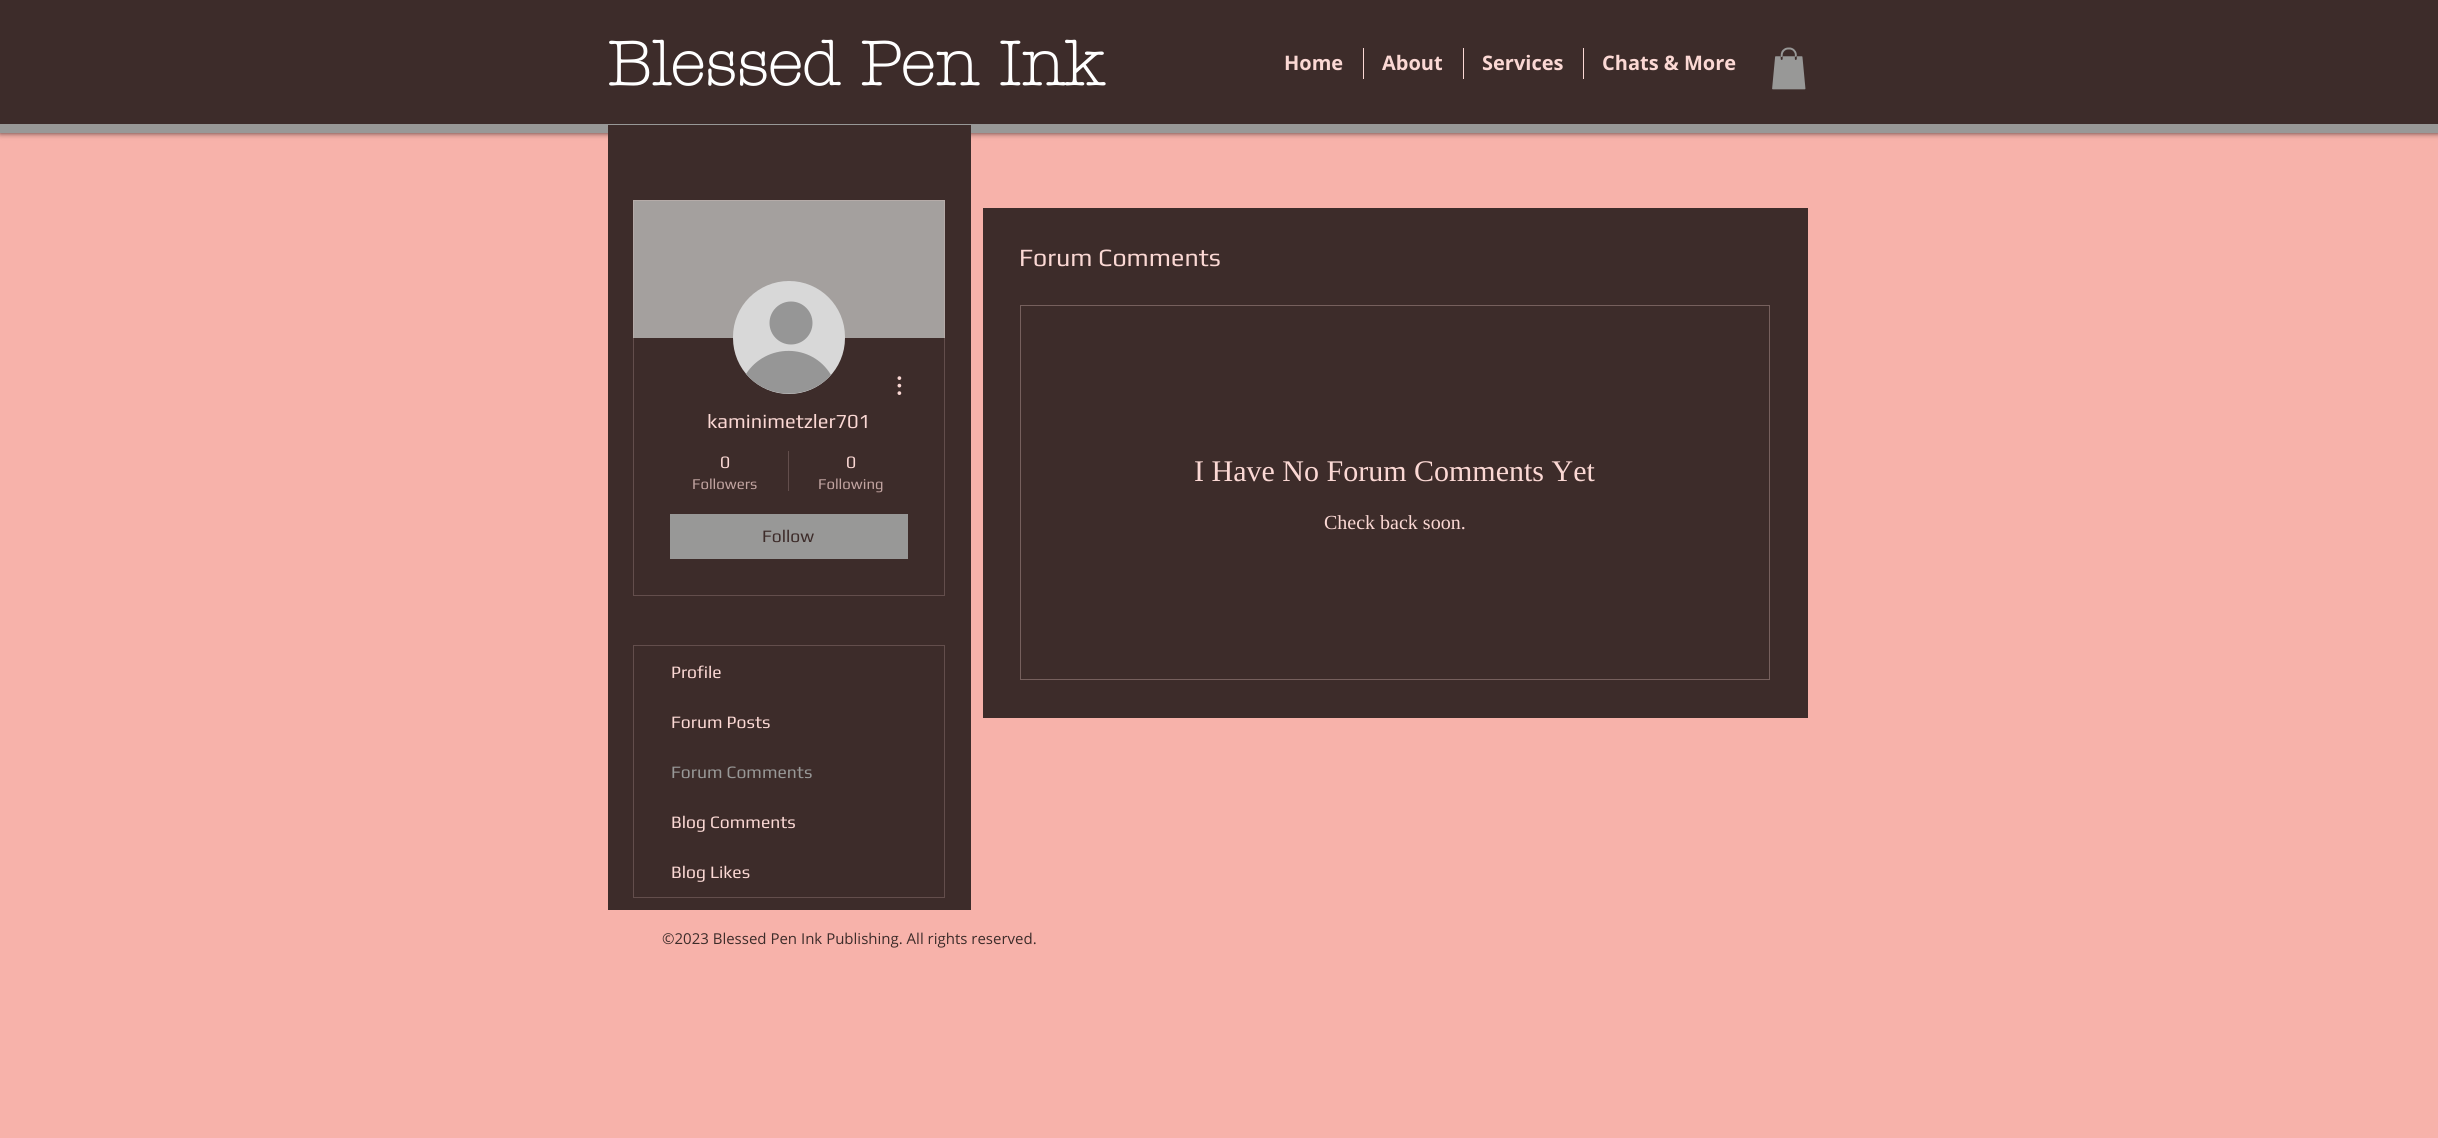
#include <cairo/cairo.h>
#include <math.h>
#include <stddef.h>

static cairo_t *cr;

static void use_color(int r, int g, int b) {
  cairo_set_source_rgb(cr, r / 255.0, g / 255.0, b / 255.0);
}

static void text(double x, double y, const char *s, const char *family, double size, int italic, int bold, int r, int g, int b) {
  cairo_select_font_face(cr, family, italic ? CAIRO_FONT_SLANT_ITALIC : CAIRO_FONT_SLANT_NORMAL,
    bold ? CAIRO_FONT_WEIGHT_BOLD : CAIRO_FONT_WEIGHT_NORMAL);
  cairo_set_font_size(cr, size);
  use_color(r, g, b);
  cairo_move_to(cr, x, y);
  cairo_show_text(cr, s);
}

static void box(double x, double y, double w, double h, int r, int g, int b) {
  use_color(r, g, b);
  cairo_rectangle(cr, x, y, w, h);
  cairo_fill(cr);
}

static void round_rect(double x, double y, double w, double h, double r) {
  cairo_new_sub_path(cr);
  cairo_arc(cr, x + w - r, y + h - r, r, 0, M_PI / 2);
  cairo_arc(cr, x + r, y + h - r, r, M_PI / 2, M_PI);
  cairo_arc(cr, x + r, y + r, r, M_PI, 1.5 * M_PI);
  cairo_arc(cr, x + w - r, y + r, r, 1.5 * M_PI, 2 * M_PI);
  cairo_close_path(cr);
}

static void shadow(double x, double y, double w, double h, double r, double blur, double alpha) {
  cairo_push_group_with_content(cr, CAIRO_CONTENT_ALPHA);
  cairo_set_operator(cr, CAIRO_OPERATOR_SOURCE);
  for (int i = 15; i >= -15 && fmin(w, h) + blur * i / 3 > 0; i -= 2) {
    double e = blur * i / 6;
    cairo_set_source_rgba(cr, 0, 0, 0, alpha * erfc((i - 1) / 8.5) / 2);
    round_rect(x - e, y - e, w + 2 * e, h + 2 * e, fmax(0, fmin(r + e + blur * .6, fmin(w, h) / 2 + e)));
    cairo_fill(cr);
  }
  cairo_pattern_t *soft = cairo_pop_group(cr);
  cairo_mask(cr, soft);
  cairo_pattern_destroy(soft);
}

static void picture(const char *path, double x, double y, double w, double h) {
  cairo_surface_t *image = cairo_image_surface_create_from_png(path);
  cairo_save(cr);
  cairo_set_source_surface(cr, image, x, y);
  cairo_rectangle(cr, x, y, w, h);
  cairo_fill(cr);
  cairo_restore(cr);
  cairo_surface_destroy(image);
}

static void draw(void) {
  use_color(247, 178, 170);
  cairo_paint(cr);
  use_color(0, 0, 0);
  shadow(0, 0, 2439, 133, 0, 3, 0.7);
  box(0, 0, 2438, 124, 61, 44, 42);
  box(0, 124, 2438, 9, 152, 152, 151);
  box(1363, 48, 1, 31, 251, 216, 212);
  box(1463, 48, 1, 31, 251, 216, 212);
  box(1583, 48, 1, 31, 251, 216, 212);
  picture("img_01.png", 1772, 47, 34, 43);
  box(608, 125, 363, 785, 61, 44, 42);
  box(633, 200, 312, 138, 164, 160, 158);
  cairo_rectangle(cr, 633.5, 200.5, 311, 395);
  cairo_set_source_rgba(cr, 0.984, 0.847, 0.831, 0.2);
  cairo_set_line_width(cr, 1);
  cairo_stroke(cr);
  use_color(216, 216, 216);
  round_rect(733, 281, 112, 113, 56);
  cairo_fill(cr);
  use_color(150, 150, 150);
  cairo_arc(cr, 791, 323, 21.5, 0, 2 * M_PI);
  cairo_fill(cr);
  cairo_new_path(cr);
  cairo_move_to(cr, 831, 375);
  cairo_curve_to(cr, 809, 400, 768, 400, 746, 374);
  cairo_curve_to(cr, 766, 343, 812, 343, 831, 375);
  cairo_close_path(cr);
  cairo_fill(cr);
  picture("img_02.png", 897, 376, 5, 19);
  box(788, 451, 1, 40, 99, 78, 76);
  box(670, 514, 238, 45, 152, 152, 151);
  cairo_rectangle(cr, 633.5, 645.5, 311, 252);
  use_color(99, 78, 76);
  cairo_stroke(cr);
  box(983, 208, 825, 510, 61, 44, 42);
  cairo_rectangle(cr, 1020.5, 305.5, 749, 374);
  use_color(118, 96, 93);
  cairo_stroke(cr);
  text(607, 85, "Blessed Pen Ink", "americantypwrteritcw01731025", 62.5, 0, 1, 255, 255, 255);
  text(1284, 70, "Home", "Open Sans", 20, 0, 1, 251, 216, 212);
  text(1382, 70, "About", "Open Sans", 20, 0, 1, 251, 216, 212);
  text(1482, 70, "Services", "Open Sans", 20, 0, 1, 251, 216, 212);
  text(1602, 70, "Chats & More", "Open Sans", 20, 0, 1, 251, 216, 212);
  text(707, 428, "kaminimetzler701", "Play", 20, 0, 0, 251, 216, 212);
  text(720, 468, "0", "Play", 17.5, 0, 0, 251, 216, 212);
  text(692, 489, "Followers", "Play", 15, 0, 0, 194, 164, 161);
  text(846, 468, "0", "Play", 17.5, 0, 0, 251, 216, 212);
  text(818, 489, "Following", "Play", 15, 0, 0, 194, 164, 161);
  text(762, 542, "Follow", "Play", 17.5, 0, 0, 61, 44, 42);
  text(671, 678, "Profile", "Play", 17.5, 0, 0, 251, 216, 212);
  text(671, 728, "Forum Posts", "Play", 17.5, 0, 0, 251, 216, 212);
  text(671, 778, "Forum Comments", "Play", 17.5, 0, 0, 152, 152, 151);
  text(671, 828, "Blog Comments", "Play", 17.5, 0, 0, 251, 216, 212);
  text(671, 878, "Blog Likes", "Play", 17.5, 0, 0, 251, 216, 212);
  text(1019, 266, "Forum Comments", "Play", 25, 0, 0, 251, 216, 212);
  text(1194, 481, "I Have No Forum Comments Yet", "Liberation Serif", 30, 0, 0, 251, 216, 212);
  text(1324, 529, "Check back soon.", "Liberation Serif", 20, 0, 0, 251, 216, 212);
  text(662, 944, "©2023 Blessed Pen Ink Publishing. All rights reserved.", "Open Sans", 15, 0, 0, 61, 44, 42);
}

int main(void) {
  cairo_surface_t *surface = cairo_image_surface_create(CAIRO_FORMAT_RGB24, 2438, 1138);
  cr = cairo_create(surface);
  cairo_font_options_t *options = cairo_font_options_create();
  cairo_font_options_set_hint_metrics(options, CAIRO_HINT_METRICS_OFF);
  cairo_font_options_set_hint_style(options, CAIRO_HINT_STYLE_NONE);
  cairo_set_font_options(cr, options);
  cairo_set_miter_limit(cr, 4);
  draw();
  cairo_surface_write_to_png(surface, "out.png");
  cairo_font_options_destroy(options);
  cairo_destroy(cr);
  cairo_surface_destroy(surface);
  return 0;
}
